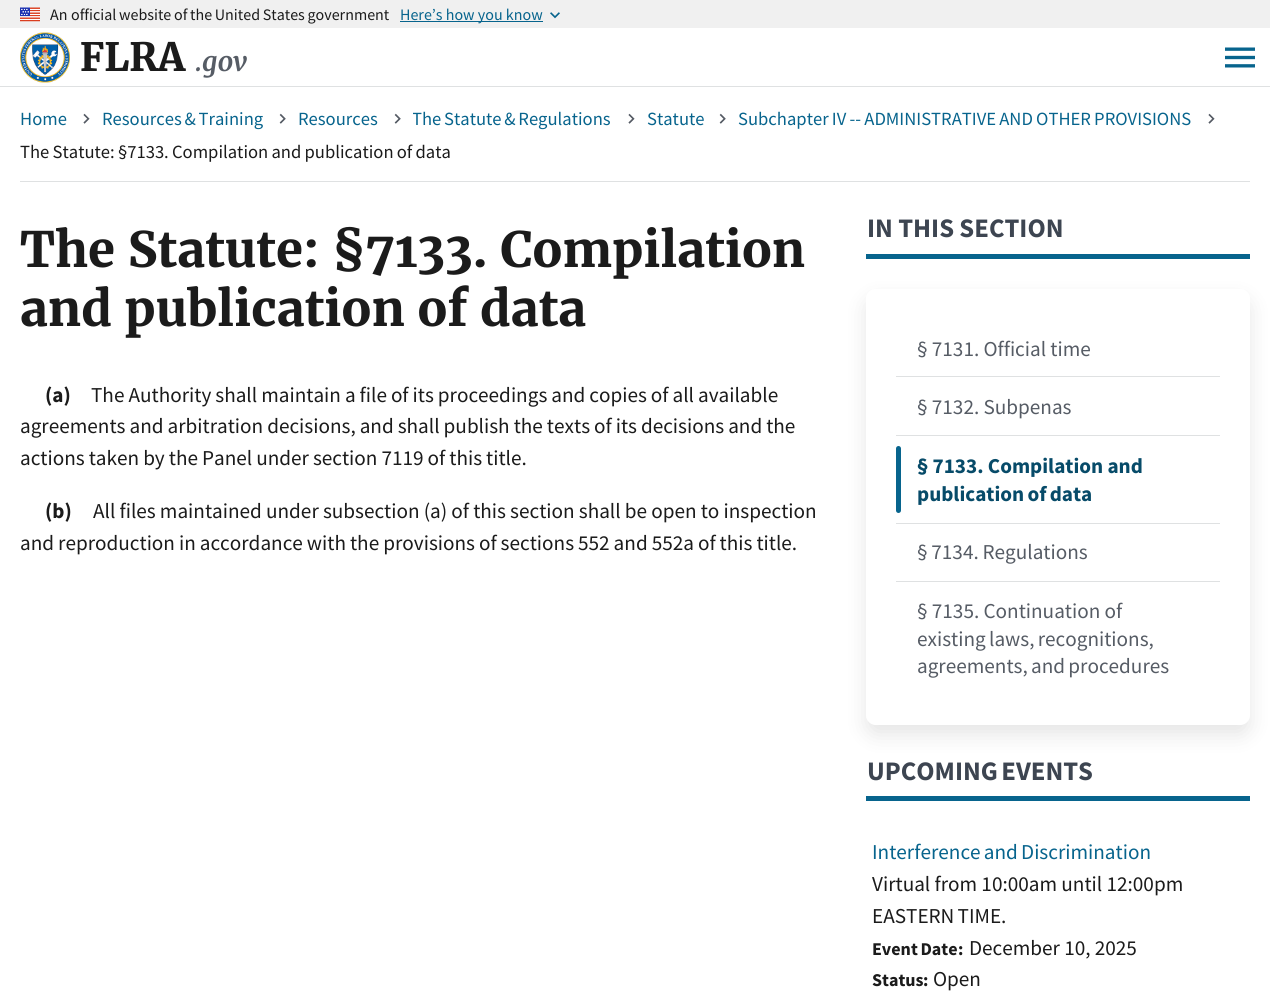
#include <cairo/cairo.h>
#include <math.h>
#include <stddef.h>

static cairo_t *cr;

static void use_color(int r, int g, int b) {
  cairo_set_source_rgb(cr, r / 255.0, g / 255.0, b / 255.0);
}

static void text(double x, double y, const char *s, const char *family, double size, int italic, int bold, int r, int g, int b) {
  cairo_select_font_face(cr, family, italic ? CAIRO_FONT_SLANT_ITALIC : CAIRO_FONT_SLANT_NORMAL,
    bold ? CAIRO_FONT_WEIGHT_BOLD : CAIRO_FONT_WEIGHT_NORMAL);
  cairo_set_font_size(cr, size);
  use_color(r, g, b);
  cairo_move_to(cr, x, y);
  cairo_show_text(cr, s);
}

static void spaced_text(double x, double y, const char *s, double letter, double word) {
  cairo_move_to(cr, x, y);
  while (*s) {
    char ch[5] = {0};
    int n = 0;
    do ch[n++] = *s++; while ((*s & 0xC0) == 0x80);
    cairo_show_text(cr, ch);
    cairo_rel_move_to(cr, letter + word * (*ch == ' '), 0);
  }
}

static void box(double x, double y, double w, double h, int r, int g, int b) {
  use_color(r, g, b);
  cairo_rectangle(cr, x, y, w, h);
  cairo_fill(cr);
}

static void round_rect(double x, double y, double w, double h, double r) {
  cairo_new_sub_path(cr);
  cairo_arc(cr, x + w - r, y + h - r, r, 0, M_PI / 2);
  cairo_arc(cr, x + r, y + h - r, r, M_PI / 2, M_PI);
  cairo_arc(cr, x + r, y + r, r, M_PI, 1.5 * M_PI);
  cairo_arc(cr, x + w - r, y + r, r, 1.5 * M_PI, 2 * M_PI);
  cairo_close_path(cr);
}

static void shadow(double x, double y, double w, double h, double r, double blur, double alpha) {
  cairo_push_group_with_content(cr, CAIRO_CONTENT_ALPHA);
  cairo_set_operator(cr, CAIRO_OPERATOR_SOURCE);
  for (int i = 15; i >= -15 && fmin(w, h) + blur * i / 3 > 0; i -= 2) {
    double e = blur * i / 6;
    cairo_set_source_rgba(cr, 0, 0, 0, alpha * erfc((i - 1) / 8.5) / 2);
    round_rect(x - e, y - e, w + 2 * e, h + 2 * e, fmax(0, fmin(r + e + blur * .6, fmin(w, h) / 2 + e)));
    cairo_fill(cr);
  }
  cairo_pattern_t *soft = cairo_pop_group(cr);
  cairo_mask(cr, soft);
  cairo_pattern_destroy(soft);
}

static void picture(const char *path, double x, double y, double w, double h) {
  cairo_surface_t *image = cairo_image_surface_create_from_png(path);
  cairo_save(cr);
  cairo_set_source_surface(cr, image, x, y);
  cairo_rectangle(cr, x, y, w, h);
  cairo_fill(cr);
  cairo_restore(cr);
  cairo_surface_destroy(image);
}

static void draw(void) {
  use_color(255, 255, 255);
  cairo_paint(cr);
  box(0, 0, 1270, 28, 240, 240, 240);
  picture("img_01.png", 20, 7, 20, 15);
  box(400, 21, 143, 1, 7, 100, 141);
  picture("img_02.png", 550, 12, 10, 7);
  box(0, 86, 1270, 1, 223, 225, 226);
  picture("img_03.png", 20, 32, 50, 51);
  picture("img_04.png", 1225, 47, 30, 21);
  box(20, 181, 1230, 1, 223, 225, 226);
  picture("img_05.png", 83, 113, 7, 11);
  picture("img_06.png", 279, 113, 7, 11);
  picture("img_06.png", 394, 113, 7, 11);
  picture("img_05.png", 628, 113, 7, 11);
  picture("img_06.png", 719, 113, 7, 11);
  picture("img_05.png", 1208, 113, 7, 11);
  box(866, 254, 384, 5, 7, 100, 141);
  cairo_save(cr);
  cairo_set_fill_rule(cr, CAIRO_FILL_RULE_EVEN_ODD);
  cairo_new_path(cr);
  cairo_move_to(cr, 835, 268);
  cairo_line_to(cr, 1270, 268);
  cairo_line_to(cr, 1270, 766);
  cairo_line_to(cr, 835, 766);
  cairo_close_path(cr);
  cairo_move_to(cr, 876, 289);
  cairo_line_to(cr, 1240, 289);
  cairo_curve_to(cr, 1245.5, 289, 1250, 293.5, 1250, 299);
  cairo_line_to(cr, 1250, 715);
  cairo_curve_to(cr, 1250, 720.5, 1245.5, 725, 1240, 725);
  cairo_line_to(cr, 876, 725);
  cairo_curve_to(cr, 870.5, 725, 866, 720.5, 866, 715);
  cairo_line_to(cr, 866, 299);
  cairo_curve_to(cr, 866, 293.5, 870.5, 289, 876, 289);
  cairo_close_path(cr);
  cairo_clip(cr);
  use_color(0, 0, 0);
  shadow(866, 299, 384, 436, 10, 10, 0.1);
  cairo_restore(cr);
  box(896, 376, 324, 1, 223, 225, 226);
  box(896, 435, 324, 1, 223, 225, 226);
  box(896, 523, 324, 1, 223, 225, 226);
  use_color(7, 100, 141);
  round_rect(896, 446, 5, 67, 2.5);
  cairo_fill(cr);
  box(896, 581, 324, 1, 223, 225, 226);
  box(866, 796, 384, 5, 7, 100, 141);
  text(50, 20, "An", "Source Sans Pro", 16, 0, 0, 27, 27, 27);
  spaced_text(71, 20, "official website of the United States government", 0, -0.5);
  text(400, 20, "Here’s how you know", "Source Sans Pro", 16, 0, 0, 7, 100, 141);
  text(80, 71, "FLRA", "Merriweather", 39, 0, 1, 27, 27, 27);
  text(195, 71, ".gov", "Merriweather", 26.75, 1, 1, 86, 92, 101);
  text(20, 125, "Home", "Source Sans Pro", 18.6, 0, 0, 7, 100, 141);
  spaced_text(102, 125, "Resources & Training", 0, -1);
  text(298, 125, "Resources", "Source Sans Pro", 18.6, 0, 0, 7, 100, 141);
  cairo_save(cr);
  cairo_rectangle(cr, 413, 105, 233, 28);
  cairo_clip(cr);
  spaced_text(412, 125, "The Statute & Regulations", 0, -1);
  cairo_restore(cr);
  text(647, 125, "Statute", "Source Sans Pro", 18.6, 0, 0, 7, 100, 141);
  spaced_text(738, 125, "Subchapter IV -- ADMINISTRATIVE AND OTHER PROVISIONS", 0, -0.5);
  use_color(27, 27, 27);
  spaced_text(20, 158, "The Statute: §7133. Compilation and publication of data", 0, -0.5);
  text(20, 267, "The Statute: §7133. Compilation", "Merriweather", 48.75, 0, 1, 27, 27, 27);
  text(20, 326, "and publication of data", "Merriweather", 48.75, 0, 1, 27, 27, 27);
  text(45, 402, "(a)", "Source Sans Pro", 21.2, 0, 1, 27, 27, 27);
  cairo_select_font_face(cr, "Source Sans Pro", CAIRO_FONT_SLANT_NORMAL, CAIRO_FONT_WEIGHT_NORMAL);
  spaced_text(91, 402, "The Authority shall maintain a file of its proceedings and copies of all available", 0, -0.25);
  spaced_text(20, 433, "agreements and arbitration decisions, and shall publish the texts of its decisions and the", 0, -0.25);
  spaced_text(20, 465, "actions taken by the Panel under section 7119 of this title.", 0, -0.25);
  text(45, 518, "(b)", "Source Sans Pro", 21.2, 0, 1, 27, 27, 27);
  cairo_select_font_face(cr, "Source Sans Pro", CAIRO_FONT_SLANT_NORMAL, CAIRO_FONT_WEIGHT_NORMAL);
  spaced_text(93, 518, "All files maintained under subsection (a) of this section shall be open to inspection", 0, -0.1);
  spaced_text(20, 550, "and reproduction in accordance with the provisions of sections 552 and 552a of this title.", 0, -0.25);
  text(867, 237, "IN THIS SECTION", "Source Sans Pro", 26.75, 0, 1, 61, 69, 81);
  text(917, 356, "§ 7131. Official time", "Source Sans Pro", 21.2, 0, 0, 86, 92, 101);
  text(917, 414, "§ 7132. Subpenas", "Source Sans Pro", 21.2, 0, 0, 86, 92, 101);
  text(917, 473, "§ 7133. Compilation and", "Source Sans Pro", 21.2, 0, 1, 7, 75, 105);
  spaced_text(917, 501, "publication of data", 0, -1);
  cairo_select_font_face(cr, "Source Sans Pro", CAIRO_FONT_SLANT_NORMAL, CAIRO_FONT_WEIGHT_NORMAL);
  use_color(86, 92, 101);
  spaced_text(917, 559, "§ 7134. Regulations", 0, -0.5);
  text(917, 618, "§ 7135. Continuation of", "Source Sans Pro", 21.2, 0, 0, 86, 92, 101);
  spaced_text(917, 646, "existing laws, recognitions,", 0, -1);
  spaced_text(917, 673, "agreements, and procedures", 0, -1);
  cairo_select_font_face(cr, "Source Sans Pro", CAIRO_FONT_SLANT_NORMAL, CAIRO_FONT_WEIGHT_BOLD);
  cairo_set_font_size(cr, 26.75);
  use_color(61, 69, 81);
  spaced_text(867, 780, "UPCOMING EVENTS", 0, -2);
  cairo_select_font_face(cr, "Source Sans Pro", CAIRO_FONT_SLANT_NORMAL, CAIRO_FONT_WEIGHT_NORMAL);
  cairo_set_font_size(cr, 21.2);
  use_color(7, 100, 141);
  spaced_text(872, 859, "Interference and Discrimination", 0, -1);
  text(872, 891, "Virtual from 10:00am until 12:00pm", "Source Sans Pro", 21.2, 0, 0, 27, 27, 27);
  spaced_text(872, 923, "EASTERN TIME.", 0, -1);
  cairo_select_font_face(cr, "Source Sans Pro", CAIRO_FONT_SLANT_NORMAL, CAIRO_FONT_WEIGHT_BOLD);
  cairo_set_font_size(cr, 18);
  spaced_text(872, 955, "Event Date", 0, -1);
  text(958, 955, ":", "Source Sans Pro", 18, 0, 1, 27, 27, 27);
  text(969, 955, "December 10, 2025", "Source Sans Pro", 21.2, 0, 0, 27, 27, 27);
  text(872, 986, "Status", "Source Sans Pro", 18, 0, 1, 27, 27, 27);
  text(923, 986, ":", "Source Sans Pro", 18, 0, 1, 27, 27, 27);
  text(933, 986, "Open", "Source Sans Pro", 21.2, 0, 0, 27, 27, 27);
}

int main(void) {
  cairo_surface_t *surface = cairo_image_surface_create(CAIRO_FORMAT_RGB24, 1270, 1002);
  cr = cairo_create(surface);
  cairo_font_options_t *options = cairo_font_options_create();
  cairo_font_options_set_hint_metrics(options, CAIRO_HINT_METRICS_OFF);
  cairo_font_options_set_hint_style(options, CAIRO_HINT_STYLE_NONE);
  cairo_set_font_options(cr, options);
  cairo_set_miter_limit(cr, 4);
  draw();
  cairo_surface_write_to_png(surface, "out.png");
  cairo_font_options_destroy(options);
  cairo_destroy(cr);
  cairo_surface_destroy(surface);
  return 0;
}
